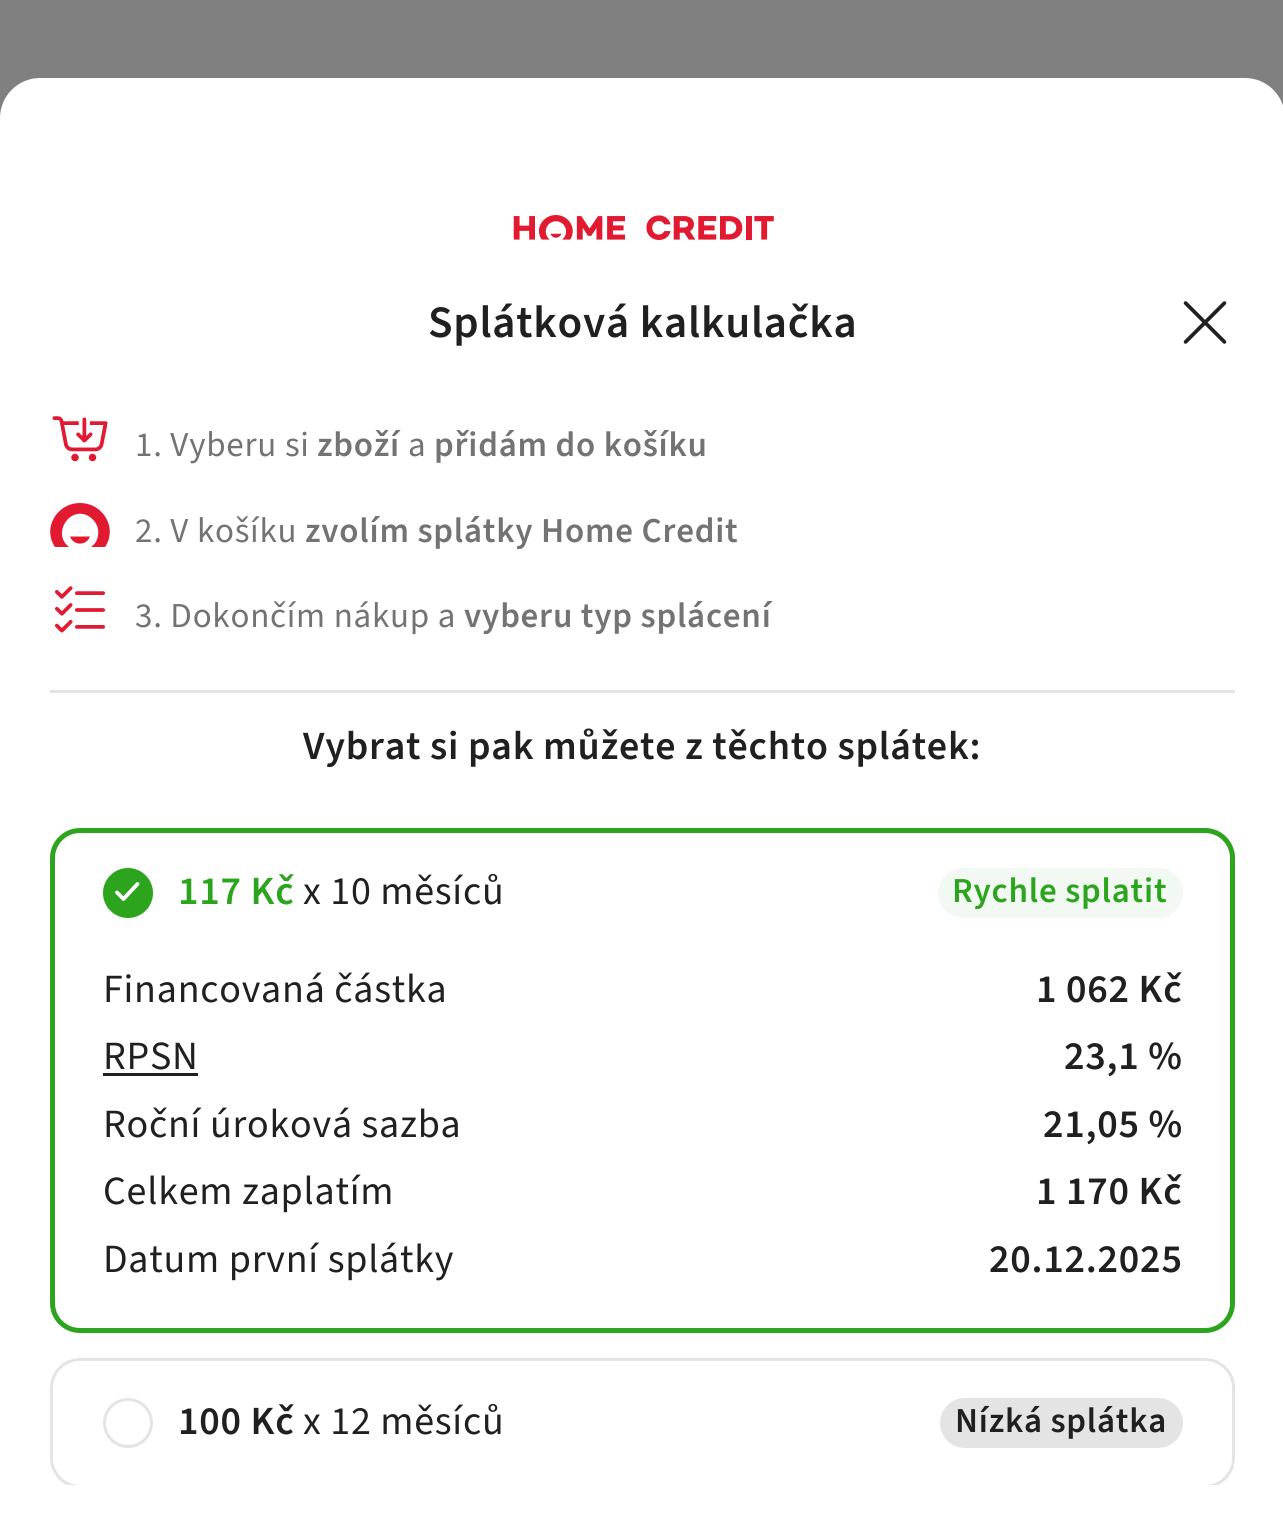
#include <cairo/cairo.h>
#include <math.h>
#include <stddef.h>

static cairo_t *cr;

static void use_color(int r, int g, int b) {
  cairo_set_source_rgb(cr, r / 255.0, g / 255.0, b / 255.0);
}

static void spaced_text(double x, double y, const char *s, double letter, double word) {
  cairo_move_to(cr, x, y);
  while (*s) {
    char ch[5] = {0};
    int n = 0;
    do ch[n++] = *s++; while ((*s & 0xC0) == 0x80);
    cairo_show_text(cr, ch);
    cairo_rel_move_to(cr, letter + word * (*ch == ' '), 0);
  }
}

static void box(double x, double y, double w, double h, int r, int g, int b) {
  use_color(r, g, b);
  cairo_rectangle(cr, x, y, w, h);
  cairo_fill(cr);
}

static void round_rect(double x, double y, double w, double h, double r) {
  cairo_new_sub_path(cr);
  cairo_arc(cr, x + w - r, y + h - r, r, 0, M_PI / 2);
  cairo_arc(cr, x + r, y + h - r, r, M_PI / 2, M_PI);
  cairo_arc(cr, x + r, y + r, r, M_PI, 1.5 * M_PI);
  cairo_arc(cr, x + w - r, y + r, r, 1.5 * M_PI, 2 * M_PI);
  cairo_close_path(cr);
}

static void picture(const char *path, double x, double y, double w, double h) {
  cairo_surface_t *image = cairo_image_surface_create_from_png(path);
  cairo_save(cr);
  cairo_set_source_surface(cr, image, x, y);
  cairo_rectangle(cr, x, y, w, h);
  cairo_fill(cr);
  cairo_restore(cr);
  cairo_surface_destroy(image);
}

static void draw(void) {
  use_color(128, 128, 128);
  cairo_paint(cr);
  use_color(255, 255, 255);
  cairo_new_path(cr);
  cairo_move_to(cr, 40, 78);
  cairo_line_to(cr, 1245, 78);
  cairo_curve_to(cr, 1267, 78, 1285, 96, 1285, 118);
  cairo_line_to(cr, 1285, 1535);
  cairo_line_to(cr, 0, 1535);
  cairo_line_to(cr, 0, 118);
  cairo_curve_to(cr, 0, 96, 18, 78, 40, 78);
  cairo_close_path(cr);
  cairo_fill(cr);
  picture("img_01.png", 513, 215, 261, 25);
  picture("img_02.png", 1183, 301, 44, 43);
  picture("img_03.png", 52, 416, 56, 46);
  use_color(225, 25, 49);
  cairo_new_path(cr);
  cairo_move_to(cr, 80, 503);
  cairo_curve_to(cr, 57, 503, 42, 528, 55, 547);
  cairo_line_to(cr, 69, 547);
  cairo_curve_to(cr, 51, 533, 71, 504, 90, 517);
  cairo_curve_to(cr, 94, 520, 97, 524, 98, 529);
  cairo_curve_to(cr, 99, 536, 97, 543, 91, 547);
  cairo_line_to(cr, 105, 547);
  cairo_curve_to(cr, 118, 528, 103, 503, 80, 503);
  cairo_close_path(cr);
  cairo_fill(cr);
  cairo_new_path(cr);
  cairo_move_to(cr, 70, 536.5);
  cairo_curve_to(cr, 73.5, 546, 86.5, 546, 90, 536.5);
  cairo_close_path(cr);
  cairo_fill(cr);
  picture("img_04.png", 55, 586, 50, 47);
  box(50, 690, 1185, 3, 228, 228, 228);
  round_rect(52.5, 830.5, 1180, 500, 27.5);
  use_color(45, 164, 30);
  cairo_set_line_width(cr, 5);
  cairo_stroke(cr);
  cairo_arc(cr, 128, 893, 25, 0, 2 * M_PI);
  cairo_fill(cr);
  cairo_new_path(cr);
  cairo_move_to(cr, 117, 892.5);
  cairo_line_to(cr, 123.5, 899);
  cairo_line_to(cr, 137.5, 884);
  use_color(255, 255, 255);
  cairo_set_line_width(cr, 3.8);
  cairo_set_line_cap(cr, CAIRO_LINE_CAP_ROUND);
  cairo_set_line_join(cr, CAIRO_LINE_JOIN_ROUND);
  cairo_stroke(cr);
  use_color(242, 248, 242);
  round_rect(938, 868, 245, 50, 25);
  cairo_fill(cr);
  box(103, 1073, 95, 3, 32, 32, 32);
  cairo_save(cr);
  cairo_rectangle(cr, 50, 408, 1228, 1077);
  cairo_clip(cr);
  round_rect(51.5, 1359.5, 1182, 127, 28.5);
  use_color(228, 228, 228);
  cairo_set_line_width(cr, 3);
  cairo_set_line_cap(cr, CAIRO_LINE_CAP_BUTT);
  cairo_set_line_join(cr, CAIRO_LINE_JOIN_MITER);
  cairo_stroke(cr);
  cairo_restore(cr);
  cairo_arc(cr, 128, 1423, 23.5, 0, 2 * M_PI);
  use_color(228, 228, 228);
  cairo_set_line_width(cr, 3);
  cairo_set_line_cap(cr, CAIRO_LINE_CAP_BUTT);
  cairo_set_line_join(cr, CAIRO_LINE_JOIN_MITER);
  cairo_stroke(cr);
  round_rect(940, 1398, 243, 50, 25);
  cairo_fill(cr);
  cairo_select_font_face(cr, "Source Sans 3 SemiBold", CAIRO_FONT_SLANT_NORMAL, CAIRO_FONT_WEIGHT_NORMAL);
  cairo_set_font_size(cr, 45);
  use_color(32, 32, 32);
  spaced_text(428, 337, "Splátková kalkulačka", 0.75, 0);
  cairo_select_font_face(cr, "Source Sans 3", CAIRO_FONT_SLANT_NORMAL, CAIRO_FONT_WEIGHT_NORMAL);
  cairo_set_font_size(cr, 35);
  use_color(115, 115, 115);
  spaced_text(135, 456, "1. Vyberu si", 0.75, 0);
  cairo_select_font_face(cr, "Source Sans 3 SemiBold", CAIRO_FONT_SLANT_NORMAL, CAIRO_FONT_WEIGHT_NORMAL);
  spaced_text(317, 456, "zboží", 0.75, 0);
  cairo_select_font_face(cr, "Source Sans 3", CAIRO_FONT_SLANT_NORMAL, CAIRO_FONT_WEIGHT_NORMAL);
  spaced_text(408, 456, "a", 0.75, 0);
  cairo_select_font_face(cr, "Source Sans 3 SemiBold", CAIRO_FONT_SLANT_NORMAL, CAIRO_FONT_WEIGHT_NORMAL);
  spaced_text(434, 456, "přidám do košíku", 0.75, 0);
  cairo_select_font_face(cr, "Source Sans 3", CAIRO_FONT_SLANT_NORMAL, CAIRO_FONT_WEIGHT_NORMAL);
  spaced_text(135, 542, "2. V košíku", 0.75, 0);
  cairo_select_font_face(cr, "Source Sans 3 SemiBold", CAIRO_FONT_SLANT_NORMAL, CAIRO_FONT_WEIGHT_NORMAL);
  spaced_text(305, 542, "zvolím splátky Home Credit", 0.75, 0);
  cairo_select_font_face(cr, "Source Sans 3", CAIRO_FONT_SLANT_NORMAL, CAIRO_FONT_WEIGHT_NORMAL);
  spaced_text(135, 627, "3. Dokončím nákup a", 0.75, 0);
  cairo_select_font_face(cr, "Source Sans 3 SemiBold", CAIRO_FONT_SLANT_NORMAL, CAIRO_FONT_WEIGHT_NORMAL);
  spaced_text(464, 627, "vyberu typ splácení", 0.75, 0);
  cairo_set_font_size(cr, 40);
  use_color(32, 32, 32);
  spaced_text(303, 759, "Vybrat si pak můžete z těchto splátek:", 0.75, 0);
  use_color(45, 164, 30);
  spaced_text(178, 904, "117 Kč", 0.75, 0);
  cairo_select_font_face(cr, "Source Sans 3", CAIRO_FONT_SLANT_NORMAL, CAIRO_FONT_WEIGHT_NORMAL);
  use_color(32, 32, 32);
  spaced_text(303, 904, "x 10 měsíců", 0.75, 0);
  cairo_select_font_face(cr, "Source Sans 3 SemiBold", CAIRO_FONT_SLANT_NORMAL, CAIRO_FONT_WEIGHT_NORMAL);
  cairo_set_font_size(cr, 35);
  use_color(45, 164, 30);
  spaced_text(952, 902, "Rychle splatit", 0.75, 0);
  cairo_select_font_face(cr, "Source Sans 3", CAIRO_FONT_SLANT_NORMAL, CAIRO_FONT_WEIGHT_NORMAL);
  cairo_set_font_size(cr, 40);
  use_color(32, 32, 32);
  spaced_text(103, 1002, "Financovaná částka", 0.75, 0);
  cairo_select_font_face(cr, "Source Sans 3 SemiBold", CAIRO_FONT_SLANT_NORMAL, CAIRO_FONT_WEIGHT_NORMAL);
  spaced_text(1036, 1002, "1 062 Kč", 0.75, 0);
  cairo_select_font_face(cr, "Source Sans 3", CAIRO_FONT_SLANT_NORMAL, CAIRO_FONT_WEIGHT_NORMAL);
  spaced_text(103, 1069, "RPSN", 0.75, 0);
  cairo_select_font_face(cr, "Source Sans 3 SemiBold", CAIRO_FONT_SLANT_NORMAL, CAIRO_FONT_WEIGHT_NORMAL);
  spaced_text(1064, 1069, "23,1 %", 0.75, 0);
  cairo_select_font_face(cr, "Source Sans 3", CAIRO_FONT_SLANT_NORMAL, CAIRO_FONT_WEIGHT_NORMAL);
  spaced_text(103, 1137, "Roční úroková sazba", 0.75, 0);
  cairo_select_font_face(cr, "Source Sans 3 SemiBold", CAIRO_FONT_SLANT_NORMAL, CAIRO_FONT_WEIGHT_NORMAL);
  spaced_text(1043, 1137, "21,05 %", 0.75, 0);
  cairo_select_font_face(cr, "Source Sans 3", CAIRO_FONT_SLANT_NORMAL, CAIRO_FONT_WEIGHT_NORMAL);
  spaced_text(103, 1204, "Celkem zaplatím", 0.75, 0);
  cairo_select_font_face(cr, "Source Sans 3 SemiBold", CAIRO_FONT_SLANT_NORMAL, CAIRO_FONT_WEIGHT_NORMAL);
  spaced_text(1036, 1204, "1 170 Kč", 0.75, 0);
  cairo_select_font_face(cr, "Source Sans 3", CAIRO_FONT_SLANT_NORMAL, CAIRO_FONT_WEIGHT_NORMAL);
  spaced_text(103, 1272, "Datum první splátky", 0.75, 0);
  cairo_select_font_face(cr, "Source Sans 3 SemiBold", CAIRO_FONT_SLANT_NORMAL, CAIRO_FONT_WEIGHT_NORMAL);
  spaced_text(989, 1272, "20.12.2025", 0.75, 0);
  spaced_text(178, 1434, "100 Kč", 0.75, 0);
  cairo_select_font_face(cr, "Source Sans 3", CAIRO_FONT_SLANT_NORMAL, CAIRO_FONT_WEIGHT_NORMAL);
  spaced_text(303, 1434, "x 12 měsíců", 0.75, 0);
  cairo_select_font_face(cr, "Source Sans 3 SemiBold", CAIRO_FONT_SLANT_NORMAL, CAIRO_FONT_WEIGHT_NORMAL);
  cairo_set_font_size(cr, 35);
  spaced_text(955, 1432, "Nízká splátka", 0.75, 0);
}

int main(void) {
  cairo_surface_t *surface = cairo_image_surface_create(CAIRO_FORMAT_RGB24, 1283, 1535);
  cr = cairo_create(surface);
  cairo_font_options_t *options = cairo_font_options_create();
  cairo_font_options_set_hint_metrics(options, CAIRO_HINT_METRICS_OFF);
  cairo_font_options_set_hint_style(options, CAIRO_HINT_STYLE_NONE);
  cairo_set_font_options(cr, options);
  cairo_set_miter_limit(cr, 4);
  draw();
  cairo_surface_write_to_png(surface, "out.png");
  cairo_font_options_destroy(options);
  cairo_destroy(cr);
  cairo_surface_destroy(surface);
  return 0;
}
